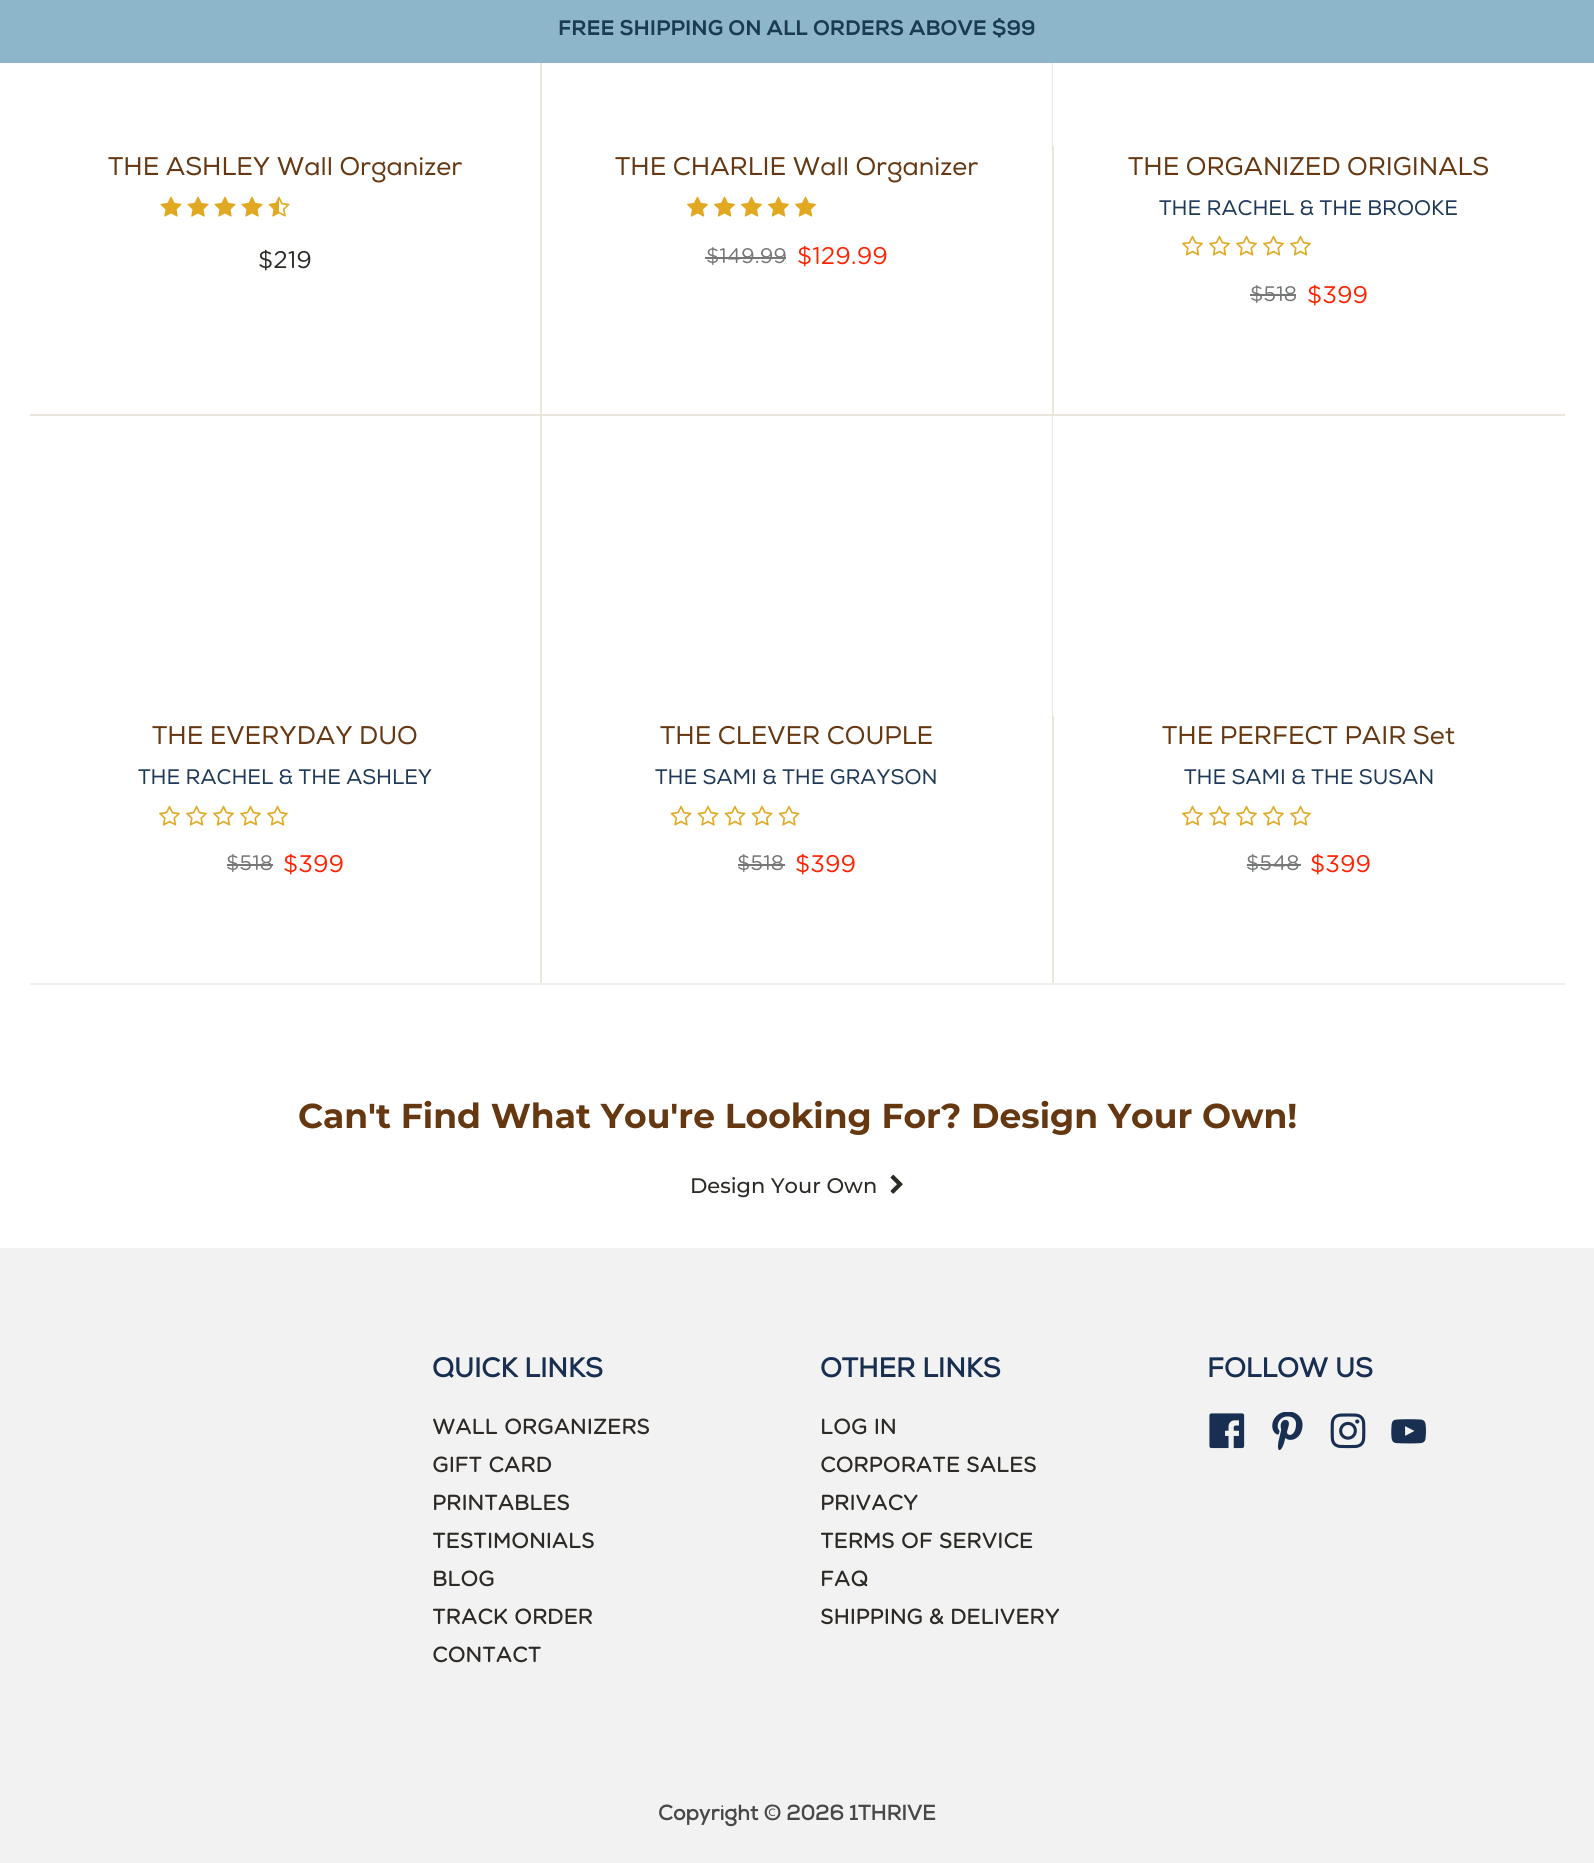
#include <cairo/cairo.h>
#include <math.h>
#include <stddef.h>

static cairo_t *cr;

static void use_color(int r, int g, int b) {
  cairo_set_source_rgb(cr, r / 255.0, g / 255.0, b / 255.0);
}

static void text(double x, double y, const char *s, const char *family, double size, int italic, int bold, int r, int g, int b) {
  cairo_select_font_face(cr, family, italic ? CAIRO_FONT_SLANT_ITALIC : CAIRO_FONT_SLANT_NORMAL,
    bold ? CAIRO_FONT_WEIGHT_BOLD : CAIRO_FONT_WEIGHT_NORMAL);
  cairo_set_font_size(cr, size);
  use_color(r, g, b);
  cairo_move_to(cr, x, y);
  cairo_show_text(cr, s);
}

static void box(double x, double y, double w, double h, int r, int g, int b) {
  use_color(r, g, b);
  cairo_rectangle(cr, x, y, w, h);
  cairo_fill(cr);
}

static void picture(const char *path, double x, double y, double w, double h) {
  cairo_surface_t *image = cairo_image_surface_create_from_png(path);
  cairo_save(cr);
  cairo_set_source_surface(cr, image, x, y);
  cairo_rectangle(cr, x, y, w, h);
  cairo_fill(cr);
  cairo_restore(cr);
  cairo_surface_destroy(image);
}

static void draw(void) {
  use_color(255, 255, 255);
  cairo_paint(cr);
  box(0, 0, 1594, 63, 142, 182, 202);
  box(30, 983, 1535, 2, 240, 239, 239);
  box(540, 63, 2, 920, 234, 229, 221);
  box(30, 414, 512, 2, 234, 229, 221);
  picture("img_01.png", 160, 196, 22, 21);
  picture("img_01.png", 187, 196, 22, 21);
  picture("img_01.png", 214, 196, 22, 21);
  picture("img_01.png", 241, 196, 22, 21);
  picture("img_02.png", 268, 196, 22, 21);
  box(1052, 63, 2, 920, 234, 229, 221);
  box(542, 414, 1023, 2, 234, 229, 221);
  picture("img_03.png", 687, 196, 21, 21);
  picture("img_03.png", 714, 196, 21, 21);
  picture("img_03.png", 741, 196, 21, 21);
  picture("img_03.png", 768, 196, 21, 21);
  picture("img_03.png", 795, 196, 21, 21);
  box(705, 257, 81, 2, 116, 119, 118);
  box(1053, 63, 1, 83, 255, 255, 255);
  picture("img_04.png", 1182, 235, 21, 21);
  picture("img_04.png", 1209, 235, 21, 21);
  picture("img_04.png", 1236, 235, 21, 21);
  picture("img_04.png", 1263, 235, 21, 21);
  picture("img_04.png", 1290, 235, 21, 21);
  box(1250, 294, 46, 2, 116, 119, 118);
  picture("img_04.png", 159, 805, 21, 21);
  picture("img_04.png", 186, 805, 21, 21);
  picture("img_04.png", 213, 805, 21, 21);
  picture("img_04.png", 240, 805, 21, 21);
  picture("img_04.png", 267, 805, 21, 21);
  box(227, 864, 46, 2, 116, 119, 118);
  picture("img_05.png", 670, 805, 22, 21);
  picture("img_05.png", 697, 805, 22, 21);
  picture("img_05.png", 724, 805, 22, 21);
  picture("img_05.png", 751, 805, 22, 21);
  picture("img_05.png", 778, 805, 22, 21);
  box(738, 864, 47, 2, 116, 119, 118);
  box(1053, 416, 1, 300, 255, 255, 255);
  picture("img_04.png", 1182, 805, 21, 21);
  picture("img_04.png", 1209, 805, 21, 21);
  picture("img_04.png", 1236, 805, 21, 21);
  picture("img_04.png", 1263, 805, 21, 21);
  picture("img_04.png", 1290, 805, 21, 21);
  box(1247, 864, 54, 2, 116, 119, 118);
  picture("img_06.png", 890, 1174, 13, 20);
  box(0, 1248, 1594, 615, 242, 242, 242);
  picture("img_07.png", 1209, 1413, 36, 36);
  picture("img_08.png", 1272, 1412, 31, 38);
  picture("img_09.png", 1330, 1413, 36, 36);
  picture("img_10.png", 1391, 1419, 35, 25);
  text(558, 35, "FREE SHIPPING ON ALL ORDERS ABOVE $99", "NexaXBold", 21, 0, 1, 25, 60, 81);
  text(108, 175, "THE ASHLEY Wall Organizer", "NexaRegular", 25.5, 0, 0, 102, 56, 18);
  text(258, 268, "$219", "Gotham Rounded", 24, 0, 0, 45, 42, 38);
  text(615, 175, "THE CHARLIE Wall Organizer", "NexaRegular", 25.5, 0, 0, 102, 56, 18);
  text(706, 263, "$149.99", "Gotham Rounded", 21, 0, 0, 116, 119, 118);
  text(797, 264, "$129.99", "Gotham Rounded", 24, 0, 0, 255, 34, 0);
  text(1128, 175, "THE ORGANIZED ORIGINALS", "NexaRegular", 25.5, 0, 0, 102, 56, 18);
  text(1159, 215, "THE RACHEL & THE BROOKE", "NexaRegular", 21, 0, 0, 30, 56, 89);
  text(1250, 301, "$518", "Gotham Rounded", 21, 0, 0, 116, 119, 118);
  text(1307, 303, "$399", "Gotham Rounded", 24, 0, 0, 255, 34, 0);
  text(152, 744, "THE EVERYDAY DUO", "NexaRegular", 25.5, 0, 0, 102, 56, 18);
  text(138, 784, "THE RACHEL & THE ASHLEY", "NexaRegular", 21, 0, 0, 30, 56, 89);
  text(226, 870, "$518", "Gotham Rounded", 21, 0, 0, 116, 119, 118);
  text(283, 872, "$399", "Gotham Rounded", 24, 0, 0, 255, 34, 0);
  text(660, 744, "THE CLEVER COUPLE", "NexaRegular", 25.5, 0, 0, 102, 56, 18);
  text(655, 784, "THE SAMI & THE GRAYSON", "NexaRegular", 21, 0, 0, 30, 56, 89);
  text(737, 870, "$518", "Gotham Rounded", 21, 0, 0, 116, 119, 118);
  text(795, 872, "$399", "Gotham Rounded", 24, 0, 0, 255, 34, 0);
  text(1162, 744, "THE PERFECT PAIR Set", "NexaRegular", 25.5, 0, 0, 102, 56, 18);
  text(1184, 784, "THE SAMI & THE SUSAN", "NexaRegular", 21, 0, 0, 30, 56, 89);
  text(1246, 870, "$548", "Gotham Rounded", 21, 0, 0, 116, 119, 118);
  text(1310, 872, "$399", "Gotham Rounded", 24, 0, 0, 255, 34, 0);
  text(298, 1128, "Can't Find What You're Looking For? Design Your Own!", "Montserrat", 34.5, 0, 1, 102, 56, 18);
  text(690, 1193, "Design Your Own", "Montserrat Medium", 21, 0, 0, 45, 42, 38);
  text(432, 1377, "QUICK LINKS", "NexaRegular", 27, 0, 1, 25, 47, 82);
  text(432, 1434, "WALL ORGANIZERS", "Gotham Rounded", 21, 0, 1, 45, 42, 38);
  text(432, 1472, "GIFT CARD", "Gotham Rounded", 21, 0, 1, 45, 42, 38);
  text(432, 1510, "PRINTABLES", "Gotham Rounded", 21, 0, 1, 45, 42, 38);
  text(432, 1548, "TESTIMONIALS", "Gotham Rounded", 21, 0, 1, 45, 42, 38);
  text(432, 1586, "BLOG", "Gotham Rounded", 21, 0, 1, 45, 42, 38);
  text(432, 1624, "TRACK ORDER", "Gotham Rounded", 21, 0, 1, 45, 42, 38);
  text(432, 1662, "CONTACT", "Gotham Rounded", 21, 0, 1, 45, 42, 38);
  text(820, 1377, "OTHER LINKS", "NexaRegular", 27, 0, 1, 25, 47, 82);
  text(820, 1434, "LOG IN", "Gotham Rounded", 21, 0, 1, 45, 42, 38);
  text(820, 1472, "CORPORATE SALES", "Gotham Rounded", 21, 0, 1, 45, 42, 38);
  text(820, 1510, "PRIVACY", "Gotham Rounded", 21, 0, 1, 45, 42, 38);
  text(820, 1548, "TERMS OF SERVICE", "Gotham Rounded", 21, 0, 1, 45, 42, 38);
  text(820, 1586, "FAQ", "Gotham Rounded", 21, 0, 1, 45, 42, 38);
  text(820, 1624, "SHIPPING & DELIVERY", "Gotham Rounded", 21, 0, 1, 45, 42, 38);
  text(1207, 1377, "FOLLOW US", "NexaRegular", 27, 0, 1, 25, 47, 82);
  text(658, 1820, "Copyright © 2026 1THRIVE", "NexaRegular", 21, 0, 1, 72, 72, 72);
}

int main(void) {
  cairo_surface_t *surface = cairo_image_surface_create(CAIRO_FORMAT_RGB24, 1594, 1863);
  cr = cairo_create(surface);
  cairo_font_options_t *options = cairo_font_options_create();
  cairo_font_options_set_hint_metrics(options, CAIRO_HINT_METRICS_OFF);
  cairo_font_options_set_hint_style(options, CAIRO_HINT_STYLE_NONE);
  cairo_set_font_options(cr, options);
  cairo_set_miter_limit(cr, 4);
  draw();
  cairo_surface_write_to_png(surface, "out.png");
  cairo_font_options_destroy(options);
  cairo_destroy(cr);
  cairo_surface_destroy(surface);
  return 0;
}
